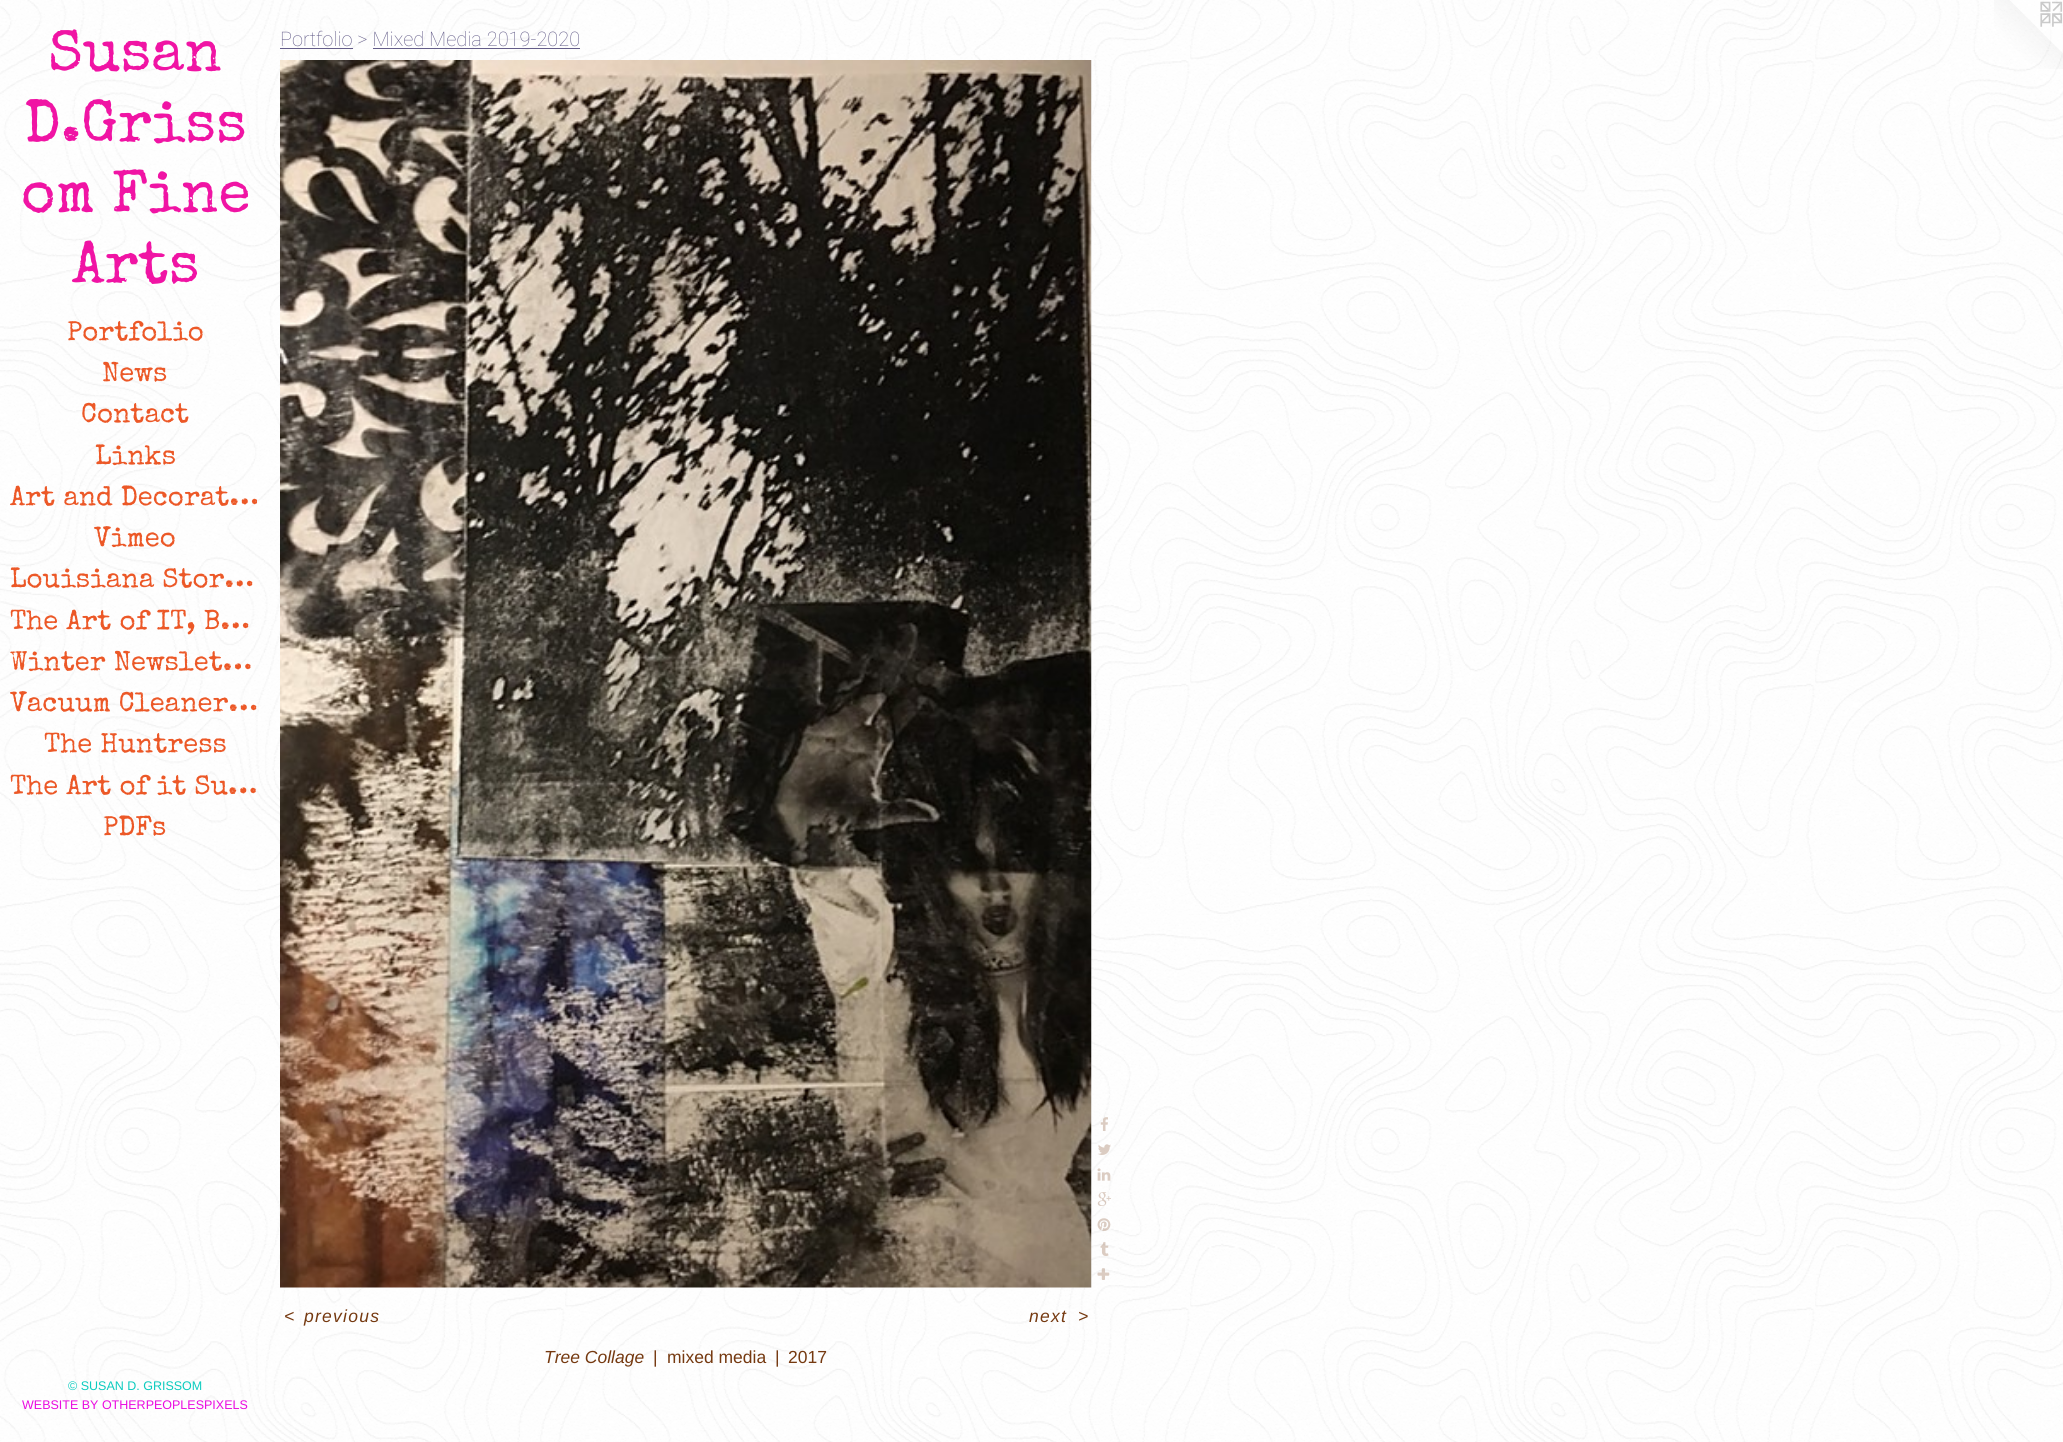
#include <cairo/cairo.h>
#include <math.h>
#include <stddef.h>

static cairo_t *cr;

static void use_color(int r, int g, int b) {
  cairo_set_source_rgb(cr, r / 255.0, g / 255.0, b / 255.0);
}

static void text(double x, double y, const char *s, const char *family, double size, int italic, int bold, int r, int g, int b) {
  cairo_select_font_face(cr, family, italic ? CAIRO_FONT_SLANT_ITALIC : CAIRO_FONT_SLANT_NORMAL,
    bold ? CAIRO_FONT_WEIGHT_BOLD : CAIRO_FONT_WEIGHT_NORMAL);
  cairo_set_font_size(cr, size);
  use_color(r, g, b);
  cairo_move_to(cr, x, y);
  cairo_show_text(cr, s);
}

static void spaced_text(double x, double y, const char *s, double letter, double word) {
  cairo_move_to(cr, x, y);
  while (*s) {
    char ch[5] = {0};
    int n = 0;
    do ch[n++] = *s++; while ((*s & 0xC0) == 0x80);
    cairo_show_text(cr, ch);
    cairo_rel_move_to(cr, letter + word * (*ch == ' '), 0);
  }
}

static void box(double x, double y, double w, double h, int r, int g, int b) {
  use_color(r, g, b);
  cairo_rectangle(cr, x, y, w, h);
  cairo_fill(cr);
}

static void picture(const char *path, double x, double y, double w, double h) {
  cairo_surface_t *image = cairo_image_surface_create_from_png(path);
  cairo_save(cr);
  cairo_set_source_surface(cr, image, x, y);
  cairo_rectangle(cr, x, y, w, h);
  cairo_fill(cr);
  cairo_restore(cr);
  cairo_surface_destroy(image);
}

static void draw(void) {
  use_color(255, 255, 255);
  cairo_paint(cr);
  picture("img_01.png", 0, 0, 2063, 1442);
  box(280, 48, 73, 1, 100, 93, 137);
  box(373, 48, 207, 1, 100, 93, 137);
  picture("img_02.png", 280, 60, 812, 1228);
  picture("img_03.png", 1100, 1117, 8, 14);
  picture("img_04.png", 1098, 1144, 13, 11);
  picture("img_05.png", 1097, 1168, 14, 13);
  picture("img_06.png", 1097, 1192, 14, 14);
  picture("img_07.png", 1097, 1218, 14, 13);
  picture("img_08.png", 1100, 1242, 9, 14);
  picture("img_09.png", 1097, 1268, 13, 12);
  picture("img_10.png", 1994, 0, 69, 69);
  text(48, 70, "Susan", "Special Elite", 59, 0, 0, 240, 20, 164);
  text(24, 141, "D.Griss", "Special Elite", 59, 0, 0, 240, 20, 164);
  text(21, 211, "om Fine", "Special Elite", 59, 0, 0, 240, 20, 164);
  text(72, 282, "Arts", "Special Elite", 59, 0, 0, 240, 20, 164);
  text(67, 340, "Portfolio", "Special Elite", 27.5, 0, 0, 236, 88, 39);
  text(102, 381, "News", "Special Elite", 27.5, 0, 0, 236, 88, 39);
  text(81, 422, "Contact", "Special Elite", 27.5, 0, 0, 236, 88, 39);
  text(95, 464, "Links", "Special Elite", 27.5, 0, 0, 236, 88, 39);
  text(10, 505, "Art and Decorat…", "Special Elite", 27.5, 0, 0, 236, 88, 39);
  text(94, 546, "Vimeo", "Special Elite", 27.5, 0, 0, 236, 88, 39);
  text(10, 587, "Louisiana Stor…", "Special Elite", 27.5, 0, 0, 236, 88, 39);
  text(10, 629, "The Art of IT, B…", "Special Elite", 27.5, 0, 0, 236, 88, 39);
  text(10, 670, "Winter Newslet…", "Special Elite", 27.5, 0, 0, 236, 88, 39);
  text(10, 711, "Vacuum Cleaner…", "Special Elite", 27.5, 0, 0, 236, 88, 39);
  text(44, 752, "The Huntress", "Special Elite", 27.5, 0, 0, 236, 88, 39);
  text(10, 794, "The Art of it Su…", "Special Elite", 27.5, 0, 0, 236, 88, 39);
  text(103, 835, "PDFs", "Special Elite", 27.5, 0, 0, 236, 88, 39);
  text(68, 1390, "© SUSAN D. GRISSOM", "Liberation Sans", 12.5, 0, 0, 11, 203, 190);
  text(22, 1409, "WEBSITE BY OTHERPEOPLESPIXELS", "Liberation Sans", 12.5, 0, 0, 234, 11, 224);
  text(280, 46, "Portfolio > Mixed Media 2019-2020", "Roboto Thin", 20, 0, 0, 100, 93, 137);
  cairo_select_font_face(cr, "Liberation Sans", CAIRO_FONT_SLANT_ITALIC, CAIRO_FONT_WEIGHT_NORMAL);
  cairo_set_font_size(cr, 17.5);
  use_color(117, 57, 16);
  spaced_text(284, 1322, "<", 1.25, 0);
  spaced_text(304, 1322, "previous", 1.25, 0);
  spaced_text(1029, 1322, "next", 1.25, 0);
  spaced_text(1078, 1322, ">", 1.25, 0);
  text(544, 1363, "Tree Collage", "Liberation Sans", 17.5, 1, 0, 117, 57, 16);
  text(653, 1363, "|", "Liberation Sans", 17.5, 0, 0, 117, 57, 16);
  text(667, 1363, "mixed media", "Liberation Sans", 17.5, 0, 0, 117, 57, 16);
  text(775, 1363, "|", "Liberation Sans", 17.5, 0, 0, 117, 57, 16);
  text(788, 1363, "2017", "Liberation Sans", 17.5, 0, 0, 117, 57, 16);
}

int main(void) {
  cairo_surface_t *surface = cairo_image_surface_create(CAIRO_FORMAT_RGB24, 2063, 1442);
  cr = cairo_create(surface);
  cairo_font_options_t *options = cairo_font_options_create();
  cairo_font_options_set_hint_metrics(options, CAIRO_HINT_METRICS_OFF);
  cairo_font_options_set_hint_style(options, CAIRO_HINT_STYLE_NONE);
  cairo_set_font_options(cr, options);
  cairo_set_miter_limit(cr, 4);
  draw();
  cairo_surface_write_to_png(surface, "out.png");
  cairo_font_options_destroy(options);
  cairo_destroy(cr);
  cairo_surface_destroy(surface);
  return 0;
}
